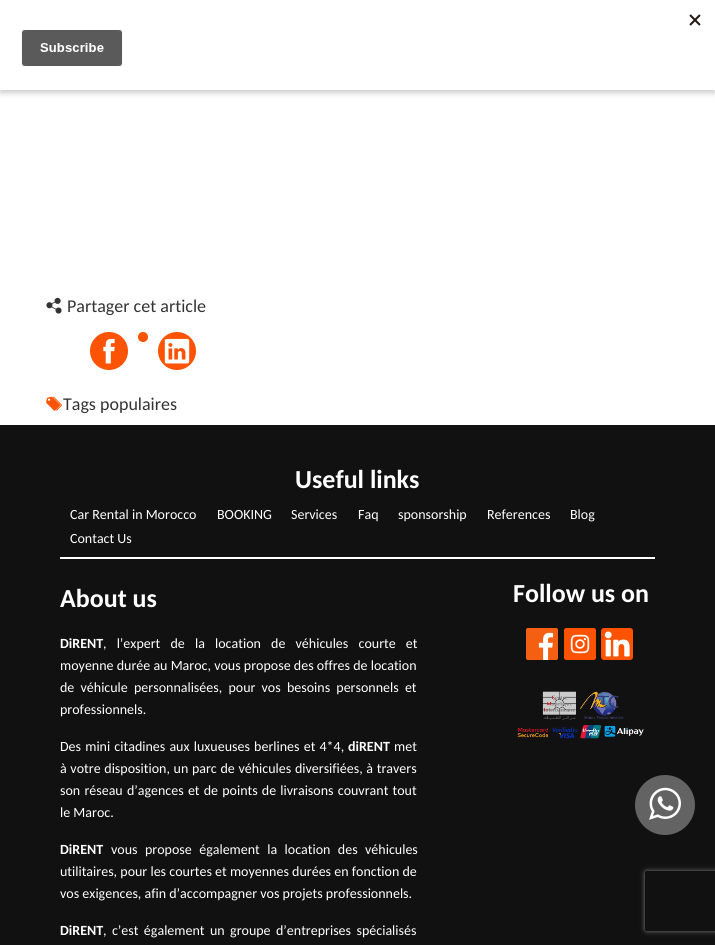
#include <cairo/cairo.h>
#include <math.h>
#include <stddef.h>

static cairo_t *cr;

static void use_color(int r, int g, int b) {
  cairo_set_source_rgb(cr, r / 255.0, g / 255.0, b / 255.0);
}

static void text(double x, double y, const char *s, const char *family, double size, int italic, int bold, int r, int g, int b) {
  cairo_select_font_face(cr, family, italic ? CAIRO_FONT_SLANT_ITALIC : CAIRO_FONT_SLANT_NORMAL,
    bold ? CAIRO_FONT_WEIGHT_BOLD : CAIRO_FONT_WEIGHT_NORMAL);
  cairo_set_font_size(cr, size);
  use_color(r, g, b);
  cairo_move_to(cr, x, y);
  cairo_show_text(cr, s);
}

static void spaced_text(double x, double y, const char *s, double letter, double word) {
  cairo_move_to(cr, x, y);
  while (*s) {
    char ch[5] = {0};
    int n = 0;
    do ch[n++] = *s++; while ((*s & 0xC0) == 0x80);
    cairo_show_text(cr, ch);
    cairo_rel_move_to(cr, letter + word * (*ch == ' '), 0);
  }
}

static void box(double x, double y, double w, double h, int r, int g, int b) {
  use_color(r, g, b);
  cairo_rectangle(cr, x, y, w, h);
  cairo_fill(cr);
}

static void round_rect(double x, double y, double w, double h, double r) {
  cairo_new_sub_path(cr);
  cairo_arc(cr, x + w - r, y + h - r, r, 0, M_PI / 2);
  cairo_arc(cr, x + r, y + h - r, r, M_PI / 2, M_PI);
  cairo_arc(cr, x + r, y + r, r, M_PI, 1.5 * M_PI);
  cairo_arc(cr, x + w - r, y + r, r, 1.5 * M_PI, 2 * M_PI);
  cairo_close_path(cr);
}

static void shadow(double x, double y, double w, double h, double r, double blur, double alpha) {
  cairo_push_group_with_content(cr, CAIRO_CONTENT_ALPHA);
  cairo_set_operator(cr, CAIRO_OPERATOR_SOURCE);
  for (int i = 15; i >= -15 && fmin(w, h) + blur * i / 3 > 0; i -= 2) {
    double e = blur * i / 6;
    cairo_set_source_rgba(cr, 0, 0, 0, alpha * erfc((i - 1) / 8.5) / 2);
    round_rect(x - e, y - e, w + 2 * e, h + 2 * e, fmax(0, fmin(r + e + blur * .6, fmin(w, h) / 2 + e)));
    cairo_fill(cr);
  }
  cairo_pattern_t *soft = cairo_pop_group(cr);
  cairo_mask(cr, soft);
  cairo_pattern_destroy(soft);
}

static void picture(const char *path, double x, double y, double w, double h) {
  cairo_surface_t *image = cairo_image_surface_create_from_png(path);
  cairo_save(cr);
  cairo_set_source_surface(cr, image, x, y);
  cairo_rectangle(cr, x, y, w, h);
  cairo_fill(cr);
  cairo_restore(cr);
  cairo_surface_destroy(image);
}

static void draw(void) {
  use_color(255, 255, 255);
  cairo_paint(cr);
  use_color(0, 0, 0);
  shadow(0, 3, 715, 90, 0, 3, 0.2);
  box(0, 0, 715, 90, 255, 255, 255);
  picture("img_01.png", 22, 14, 679, 52);
  picture("img_02.png", 46, 297, 16, 17);
  use_color(253, 83, 4);
  cairo_arc(cr, 109, 351, 19, 0, 2 * M_PI);
  cairo_fill(cr);
  picture("img_03.png", 103, 338, 12, 26);
  cairo_arc(cr, 143, 337, 5, 0, 2 * M_PI);
  cairo_fill(cr);
  cairo_arc(cr, 177, 351, 19, 0, 2 * M_PI);
  cairo_fill(cr);
  picture("img_04.png", 164, 338, 26, 26);
  picture("img_05.png", 46, 396, 16, 15);
  box(0, 425, 715, 520, 17, 17, 17);
  box(60, 557, 595, 2, 255, 255, 255);
  round_rect(526, 628, 32, 32, 6);
  cairo_fill(cr);
  picture("img_06.png", 526, 628, 32, 32);
  round_rect(564, 628, 32, 32, 6);
  cairo_fill(cr);
  picture("img_07.png", 564, 628, 32, 32);
  round_rect(601, 628, 32, 32, 6);
  cairo_fill(cr);
  picture("img_08.png", 601, 628, 32, 32);
  picture("img_09.png", 517, 691, 127, 48);
  use_color(99, 99, 99);
  cairo_arc(cr, 665, 805, 30, 0, 2 * M_PI);
  cairo_fill(cr);
  picture("img_10.png", 649, 787, 32, 33);
  cairo_save(cr);
  cairo_set_fill_rule(cr, CAIRO_FILL_RULE_EVEN_ODD);
  cairo_new_path(cr);
  cairo_move_to(cr, 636, 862);
  cairo_line_to(cr, 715, 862);
  cairo_line_to(cr, 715, 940);
  cairo_line_to(cr, 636, 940);
  cairo_close_path(cr);
  cairo_move_to(cr, 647, 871);
  cairo_line_to(cr, 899, 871);
  cairo_curve_to(cr, 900, 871, 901, 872, 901, 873);
  cairo_line_to(cr, 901, 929);
  cairo_curve_to(cr, 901, 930, 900, 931, 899, 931);
  cairo_line_to(cr, 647, 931);
  cairo_curve_to(cr, 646, 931, 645, 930, 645, 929);
  cairo_line_to(cr, 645, 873);
  cairo_curve_to(cr, 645, 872, 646, 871, 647, 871);
  cairo_close_path(cr);
  cairo_clip(cr);
  use_color(128, 128, 128);
  shadow(645, 871, 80, 60, 2, 2.5, 1);
  cairo_restore(cr);
  text(67, 312, "Partager cet article", "Carlito", 18, 0, 0, 51, 51, 51);
  text(63, 410, "Tags populaires", "Carlito", 18, 0, 0, 51, 51, 51);
  text(295, 488, "Useful links", "Carlito", 26, 0, 1, 255, 255, 255);
  text(70, 519, "Car Rental in Morocco", "Carlito", 14, 0, 0, 255, 255, 255);
  text(217, 519, "BOOKING", "Carlito", 14, 0, 0, 255, 255, 255);
  text(291, 519, "Services", "Carlito", 14, 0, 0, 255, 255, 255);
  text(358, 519, "Faq", "Carlito", 14, 0, 0, 255, 255, 255);
  text(398, 519, "sponsorship", "Carlito", 14, 0, 0, 255, 255, 255);
  text(487, 519, "References", "Carlito", 14, 0, 0, 255, 255, 255);
  text(570, 519, "Blog", "Carlito", 14, 0, 0, 255, 255, 255);
  text(70, 543, "Contact Us", "Carlito", 14, 0, 0, 255, 255, 255);
  text(60, 607, "About us", "Carlito", 26, 0, 1, 255, 255, 255);
  text(60, 648, "DiRENT", "Carlito", 14, 0, 1, 255, 255, 255);
  cairo_select_font_face(cr, "Carlito", CAIRO_FONT_SLANT_NORMAL, CAIRO_FONT_WEIGHT_NORMAL);
  spaced_text(103, 648, ", l’expert de la location de véhicules courte et", 0, 7);
  text(60, 670, "moyenne durée au Maroc, vous propose des offres de location", "Carlito", 14, 0, 0, 255, 255, 255);
  spaced_text(60, 692, "de véhicule personnalisées, pour vos besoins personnels et", 0, 3);
  text(60, 714, "professionnels.", "Carlito", 14, 0, 0, 255, 255, 255);
  spaced_text(60, 751, "Des mini citadines aux luxueuses berlines et 4*4,", 0, 1);
  text(348, 751, "diRENT", "Carlito", 14, 0, 1, 255, 255, 255);
  text(394, 751, "met", "Carlito", 14, 0, 0, 255, 255, 255);
  spaced_text(60, 773, "à votre disposition, un parc de véhicules diversifiées, à travers", 0, 0.5);
  spaced_text(60, 795, "son réseau d’agences et de points de livraisons couvrant tout", 0, 1);
  text(60, 817, "le Maroc.", "Carlito", 14, 0, 0, 255, 255, 255);
  text(60, 854, "DiRENT", "Carlito", 14, 0, 1, 255, 255, 255);
  cairo_select_font_face(cr, "Carlito", CAIRO_FONT_SLANT_NORMAL, CAIRO_FONT_WEIGHT_NORMAL);
  spaced_text(111, 854, "vous propose également la location des véhicules", 0, 4.25);
  text(60, 876, "utilitaires, pour les courtes et moyennes durées en fonction de", "Carlito", 14, 0, 0, 255, 255, 255);
  text(60, 898, "vos exigences, afin d’accompagner vos projets professionnels.", "Carlito", 14, 0, 0, 255, 255, 255);
  text(60, 935, "DiRENT", "Carlito", 14, 0, 1, 255, 255, 255);
  cairo_select_font_face(cr, "Carlito", CAIRO_FONT_SLANT_NORMAL, CAIRO_FONT_WEIGHT_NORMAL);
  spaced_text(103, 935, ", c’est également un groupe d’entreprises spécialisés", 0, 2.25);
  text(513, 602, "Follow us on", "Carlito", 26, 0, 1, 255, 255, 255);
}

int main(void) {
  cairo_surface_t *surface = cairo_image_surface_create(CAIRO_FORMAT_RGB24, 715, 945);
  cr = cairo_create(surface);
  cairo_font_options_t *options = cairo_font_options_create();
  cairo_font_options_set_hint_metrics(options, CAIRO_HINT_METRICS_OFF);
  cairo_font_options_set_hint_style(options, CAIRO_HINT_STYLE_NONE);
  cairo_set_font_options(cr, options);
  cairo_set_miter_limit(cr, 4);
  draw();
  cairo_surface_write_to_png(surface, "out.png");
  cairo_font_options_destroy(options);
  cairo_destroy(cr);
  cairo_surface_destroy(surface);
  return 0;
}
